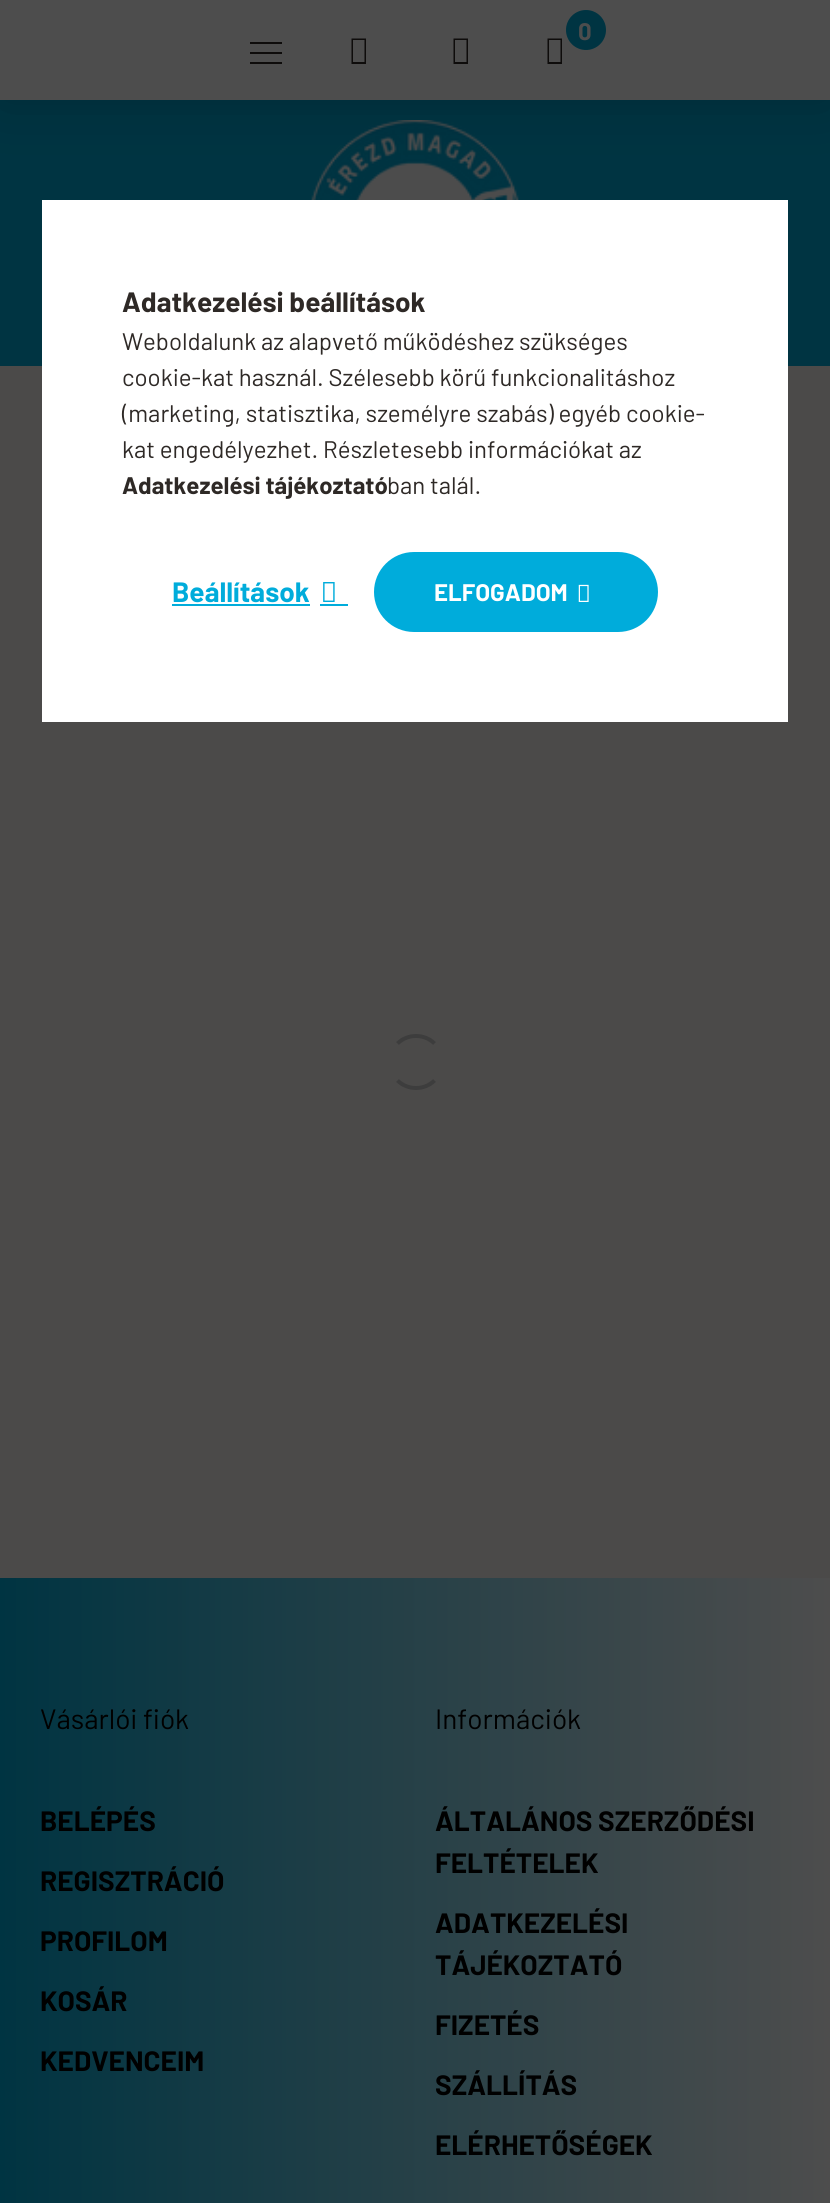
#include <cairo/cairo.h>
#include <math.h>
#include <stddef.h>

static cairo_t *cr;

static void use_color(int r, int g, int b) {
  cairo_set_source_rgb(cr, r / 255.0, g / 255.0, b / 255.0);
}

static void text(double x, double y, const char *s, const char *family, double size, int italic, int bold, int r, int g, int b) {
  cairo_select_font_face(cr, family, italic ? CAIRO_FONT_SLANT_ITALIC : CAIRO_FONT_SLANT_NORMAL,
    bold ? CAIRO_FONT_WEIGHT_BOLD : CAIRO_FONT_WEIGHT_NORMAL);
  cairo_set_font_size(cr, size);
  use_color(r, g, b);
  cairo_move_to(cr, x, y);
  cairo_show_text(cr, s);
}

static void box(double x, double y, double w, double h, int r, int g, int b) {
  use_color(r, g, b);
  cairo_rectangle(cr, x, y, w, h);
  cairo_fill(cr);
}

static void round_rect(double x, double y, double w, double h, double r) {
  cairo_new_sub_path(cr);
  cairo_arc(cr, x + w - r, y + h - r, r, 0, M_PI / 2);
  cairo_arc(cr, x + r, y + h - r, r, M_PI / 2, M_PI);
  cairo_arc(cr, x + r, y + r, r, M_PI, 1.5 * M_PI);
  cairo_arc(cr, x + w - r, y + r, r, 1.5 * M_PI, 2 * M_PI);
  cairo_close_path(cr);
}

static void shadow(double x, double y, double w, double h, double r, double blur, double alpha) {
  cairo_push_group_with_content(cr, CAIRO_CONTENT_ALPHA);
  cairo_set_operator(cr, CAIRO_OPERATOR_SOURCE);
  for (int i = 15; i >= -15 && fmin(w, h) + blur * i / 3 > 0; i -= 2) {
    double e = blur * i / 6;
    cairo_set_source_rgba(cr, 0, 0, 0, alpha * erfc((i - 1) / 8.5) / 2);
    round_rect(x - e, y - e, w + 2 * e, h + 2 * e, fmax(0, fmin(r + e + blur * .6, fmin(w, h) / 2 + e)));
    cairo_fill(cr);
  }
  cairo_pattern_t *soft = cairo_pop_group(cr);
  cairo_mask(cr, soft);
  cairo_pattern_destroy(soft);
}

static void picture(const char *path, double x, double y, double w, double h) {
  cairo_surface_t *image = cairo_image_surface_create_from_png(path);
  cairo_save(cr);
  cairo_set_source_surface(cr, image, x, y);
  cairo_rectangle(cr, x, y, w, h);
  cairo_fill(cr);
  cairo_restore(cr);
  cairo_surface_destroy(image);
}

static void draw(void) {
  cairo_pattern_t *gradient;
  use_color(75, 74, 73);
  cairo_paint(cr);
  box(0, 100, 830, 266, 0, 52, 66);
  picture("img_01.png", 311, 120, 208, 80);
  use_color(0, 0, 0);
  shadow(0, 0, 830, 100, 0, 30, 0.2);
  box(0, 0, 830, 100, 77, 77, 77);
  use_color(0, 52, 66);
  cairo_arc(cr, 586, 30, 20, 0, 2 * M_PI);
  cairo_fill(cr);
  use_color(14, 12, 11);
  cairo_new_path(cr);
  cairo_move_to(cr, 547.5, 64);
  cairo_line_to(cr, 547.5, 38.5);
  cairo_line_to(cr, 562, 38.5);
  cairo_line_to(cr, 562, 64);
  cairo_close_path(cr);
  cairo_move_to(cr, 549, 62);
  cairo_line_to(cr, 560.5, 62);
  cairo_line_to(cr, 560.5, 40);
  cairo_line_to(cr, 549, 40);
  cairo_close_path(cr);
  cairo_fill(cr);
  box(250, 42, 32, 2, 14, 12, 11);
  box(250, 52, 32, 2, 14, 12, 11);
  box(250, 62, 32, 2, 14, 12, 11);
  cairo_new_path(cr);
  cairo_move_to(cr, 351.5, 64);
  cairo_line_to(cr, 351.5, 38.5);
  cairo_line_to(cr, 366, 38.5);
  cairo_line_to(cr, 366, 64);
  cairo_close_path(cr);
  cairo_move_to(cr, 353, 62);
  cairo_line_to(cr, 364.5, 62);
  cairo_line_to(cr, 364.5, 40);
  cairo_line_to(cr, 353, 40);
  cairo_close_path(cr);
  cairo_fill(cr);
  cairo_new_path(cr);
  cairo_move_to(cr, 453.5, 64);
  cairo_line_to(cr, 453.5, 38.5);
  cairo_line_to(cr, 468, 38.5);
  cairo_line_to(cr, 468, 64);
  cairo_close_path(cr);
  cairo_move_to(cr, 455, 62);
  cairo_line_to(cr, 466.5, 62);
  cairo_line_to(cr, 466.5, 40);
  cairo_line_to(cr, 455, 40);
  cairo_close_path(cr);
  cairo_fill(cr);
  cairo_new_path(cr);
  cairo_move_to(cr, 397.5, 1043.5);
  cairo_curve_to(cr, 407.5, 1033.5, 424.5, 1033.5, 434.5, 1043.5);
  cairo_move_to(cr, 434.5, 1080.5);
  cairo_curve_to(cr, 424.5, 1090.5, 407.5, 1090.5, 397.5, 1080.5);
  use_color(61, 61, 61);
  cairo_set_line_width(cr, 4);
  cairo_stroke(cr);
  gradient = cairo_pattern_create_linear(0, 1102, 830, 1102);
  cairo_pattern_add_color_stop_rgba(gradient, 0, 0, 0.204, 0.259, 1);
  cairo_pattern_add_color_stop_rgba(gradient, 1, 0.302, 0.302, 0.302, 1);
  cairo_set_source(cr, gradient);
  cairo_pattern_destroy(gradient);
  cairo_rectangle(cr, 0, 1578, 830, 625);
  cairo_fill(cr);
  box(42, 200, 746, 522, 255, 255, 255);
  box(172, 604, 138, 2, 0, 172, 219);
  picture("img_02.png", 323, 582, 12, 20);
  box(320, 604, 28, 2, 0, 172, 219);
  gradient = cairo_pattern_create_linear(375, 592, 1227, 592);
  cairo_pattern_add_color_stop_rgba(gradient, 0.33, 0, 0.675, 0.859, 1);
  cairo_pattern_add_color_stop_rgba(gradient, 0.67, 1, 1, 1, 1);
  cairo_set_source(cr, gradient);
  cairo_pattern_destroy(gradient);
  round_rect(374, 552, 284, 80, 40);
  cairo_fill(cr);
  picture("img_03.png", 578, 584, 11, 18);
  text(578, 40, "0", "Barlow", 24, 0, 1, 77, 77, 77);
  text(40, 1729, "Vásárlói fiók", "Barlow", 28, 0, 0, 0, 0, 0);
  text(40, 1831, "BELÉPÉS", "Barlow", 28, 0, 1, 0, 0, 0);
  text(40, 1891, "REGISZTRÁCIÓ", "Barlow", 28, 0, 1, 0, 0, 0);
  text(40, 1951, "PROFILOM", "Barlow", 28, 0, 1, 0, 0, 0);
  text(40, 2011, "KOSÁR", "Barlow", 28, 0, 1, 0, 0, 0);
  text(40, 2071, "KEDVENCEIM", "Barlow", 28, 0, 1, 0, 0, 0);
  text(435, 1729, "Információk", "Barlow", 28, 0, 0, 0, 0, 0);
  text(435, 1831, "ÁLTALÁNOS SZERZŐDÉSI", "Barlow", 28, 0, 1, 0, 0, 0);
  text(435, 1873, "FELTÉTELEK", "Barlow", 28, 0, 1, 0, 0, 0);
  text(435, 1933, "ADATKEZELÉSI", "Barlow", 28, 0, 1, 0, 0, 0);
  text(435, 1975, "TÁJÉKOZTATÓ", "Barlow", 28, 0, 1, 0, 0, 0);
  text(435, 2035, "FIZETÉS", "Barlow", 28, 0, 1, 0, 0, 0);
  text(435, 2095, "SZÁLLÍTÁS", "Barlow", 28, 0, 1, 0, 0, 0);
  text(435, 2155, "ELÉRHETŐSÉGEK", "Barlow", 28, 0, 1, 0, 0, 0);
  text(122, 312, "Adatkezelési beállítások", "Barlow", 28, 0, 1, 46, 41, 38);
  text(122, 350, "Weboldalunk az alapvető működéshez szükséges", "Barlow", 24, 0, 0, 46, 41, 38);
  text(122, 386, "cookie-kat használ. Szélesebb körű funkcionalitáshoz", "Barlow", 24, 0, 0, 46, 41, 38);
  text(122, 422, "(marketing, statisztika, személyre szabás) egyéb cookie-", "Barlow", 24, 0, 0, 46, 41, 38);
  text(122, 458, "kat engedélyezhet. Részletesebb információkat az", "Barlow", 24, 0, 0, 46, 41, 38);
  text(122, 494, "Adatkezelési tájékoztató", "Barlow", 24, 0, 1, 46, 41, 38);
  text(387, 494, "ban talál.", "Barlow", 24, 0, 0, 46, 41, 38);
  text(172, 602, "Beállítások", "Barlow", 28, 0, 1, 0, 172, 219);
  text(434, 601, "ELFOGADOM", "Barlow", 24, 0, 1, 255, 255, 255);
}

int main(void) {
  cairo_surface_t *surface = cairo_image_surface_create(CAIRO_FORMAT_RGB24, 830, 2203);
  cr = cairo_create(surface);
  cairo_font_options_t *options = cairo_font_options_create();
  cairo_font_options_set_hint_metrics(options, CAIRO_HINT_METRICS_OFF);
  cairo_font_options_set_hint_style(options, CAIRO_HINT_STYLE_NONE);
  cairo_set_font_options(cr, options);
  cairo_set_miter_limit(cr, 4);
  draw();
  cairo_surface_write_to_png(surface, "out.png");
  cairo_font_options_destroy(options);
  cairo_destroy(cr);
  cairo_surface_destroy(surface);
  return 0;
}
